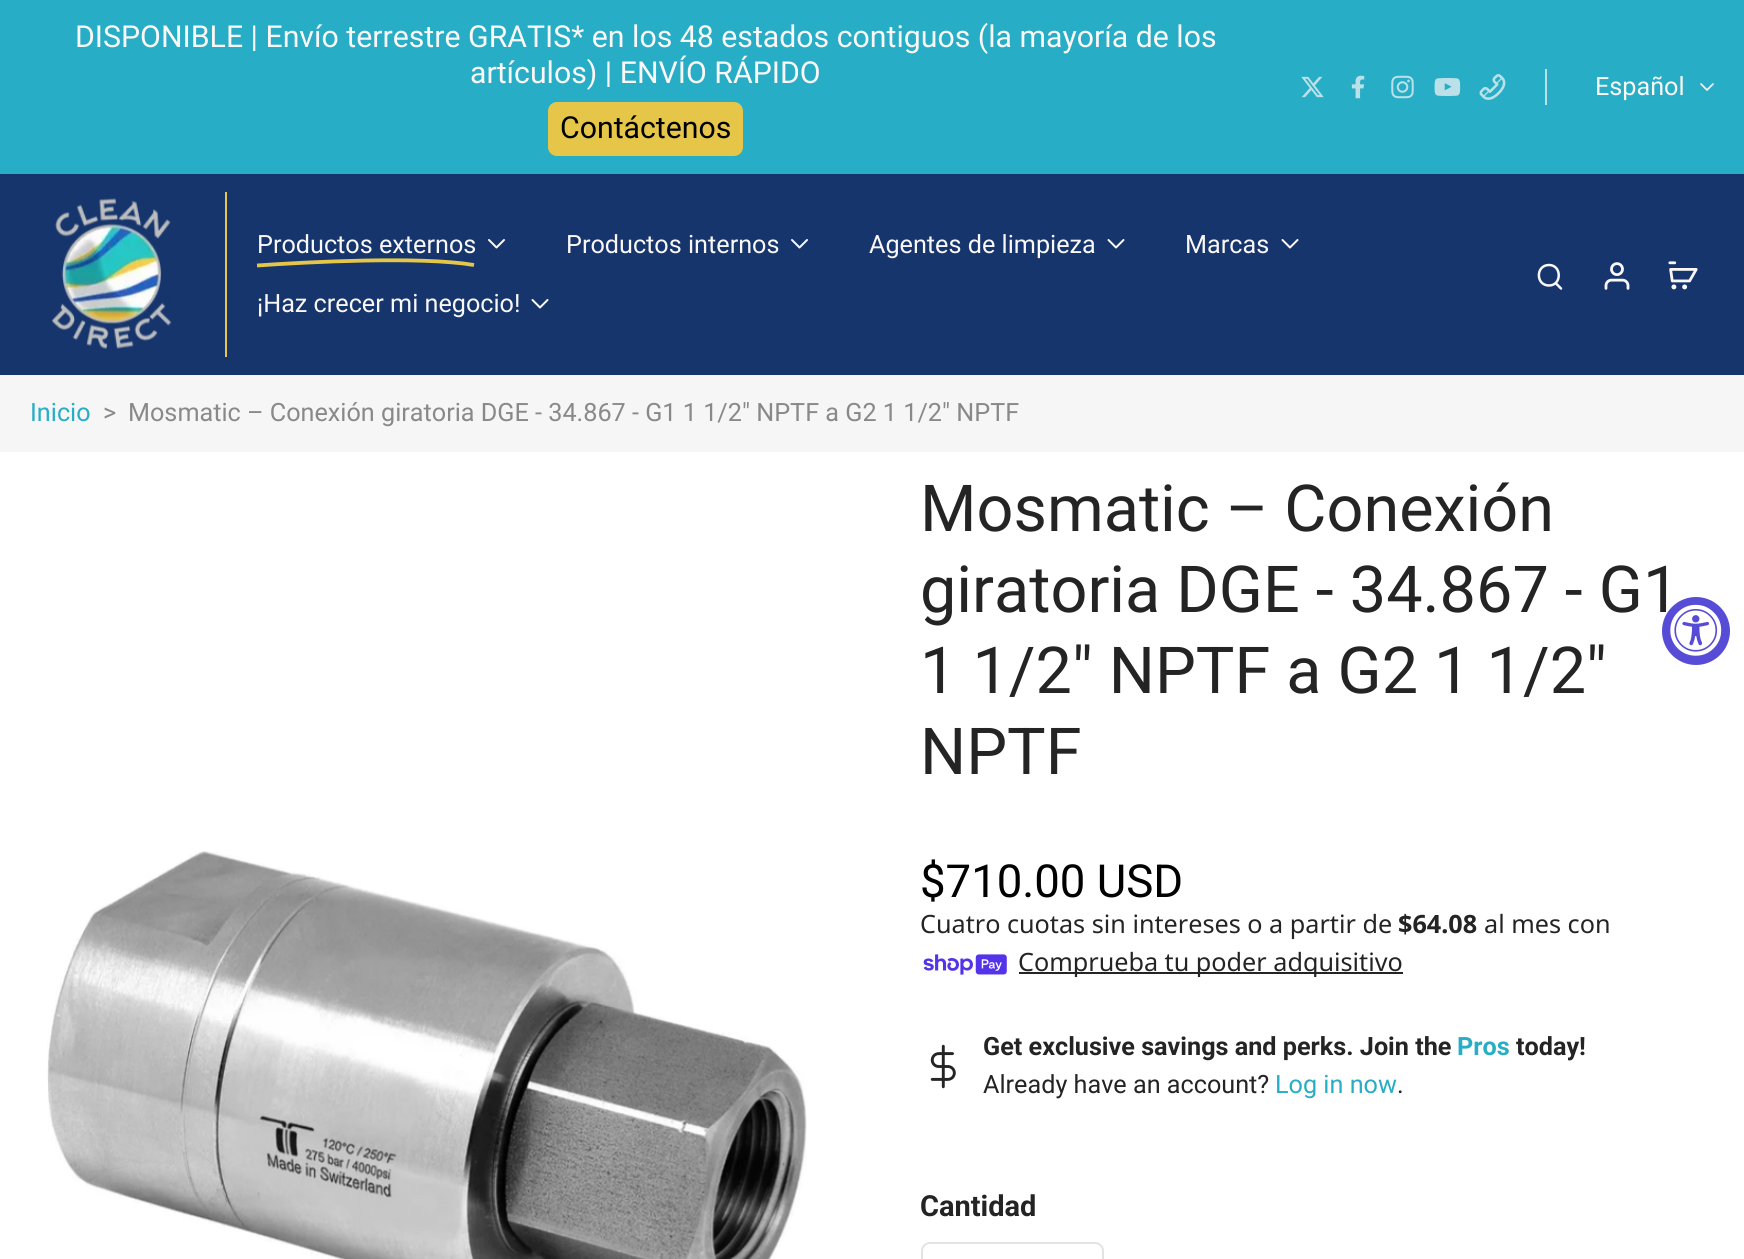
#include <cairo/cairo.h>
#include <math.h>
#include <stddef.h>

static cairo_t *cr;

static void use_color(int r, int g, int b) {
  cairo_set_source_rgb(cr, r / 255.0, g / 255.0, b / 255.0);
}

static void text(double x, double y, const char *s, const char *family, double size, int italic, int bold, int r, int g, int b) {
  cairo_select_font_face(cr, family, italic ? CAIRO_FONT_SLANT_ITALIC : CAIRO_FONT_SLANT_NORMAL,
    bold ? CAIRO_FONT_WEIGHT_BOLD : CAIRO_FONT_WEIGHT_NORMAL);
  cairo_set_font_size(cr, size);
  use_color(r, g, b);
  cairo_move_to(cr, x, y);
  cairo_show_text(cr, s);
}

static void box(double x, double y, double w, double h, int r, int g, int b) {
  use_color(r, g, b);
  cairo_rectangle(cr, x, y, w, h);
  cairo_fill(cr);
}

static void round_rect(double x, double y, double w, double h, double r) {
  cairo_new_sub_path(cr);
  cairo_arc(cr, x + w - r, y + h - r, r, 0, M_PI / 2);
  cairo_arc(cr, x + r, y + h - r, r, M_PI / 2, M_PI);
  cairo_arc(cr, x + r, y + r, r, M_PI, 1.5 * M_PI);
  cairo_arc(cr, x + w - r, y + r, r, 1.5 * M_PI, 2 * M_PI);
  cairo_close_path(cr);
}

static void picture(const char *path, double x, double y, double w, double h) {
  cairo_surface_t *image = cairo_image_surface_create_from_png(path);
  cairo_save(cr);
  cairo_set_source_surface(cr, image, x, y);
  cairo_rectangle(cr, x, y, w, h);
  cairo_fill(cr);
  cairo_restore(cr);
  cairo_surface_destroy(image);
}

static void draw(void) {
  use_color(255, 255, 255);
  cairo_paint(cr);
  box(0, 0, 1744, 174, 39, 173, 197);
  use_color(229, 198, 73);
  round_rect(548, 102, 195, 54, 9);
  cairo_fill(cr);
  box(1545, 69, 2, 36, 187, 225, 232);
  picture("img_01.png", 1301, 76, 23, 22);
  picture("img_02.png", 1351, 75, 14, 24);
  picture("img_03.png", 1391, 75, 23, 24);
  picture("img_04.png", 1434, 78, 27, 18);
  picture("img_05.png", 1479, 74, 27, 26);
  cairo_new_path(cr);
  cairo_move_to(cr, 1701, 84);
  cairo_line_to(cr, 1707, 90);
  cairo_line_to(cr, 1713, 84);
  use_color(250, 247, 247);
  cairo_set_line_width(cr, 1.7);
  cairo_set_line_cap(cr, CAIRO_LINE_CAP_ROUND);
  cairo_set_line_join(cr, CAIRO_LINE_JOIN_ROUND);
  cairo_stroke(cr);
  box(0, 174, 1744, 201, 22, 53, 108);
  box(225, 192, 2, 165, 229, 198, 73);
  picture("img_06.png", 52, 198, 119, 151);
  cairo_new_path(cr);
  cairo_move_to(cr, 257, 265.5);
  cairo_curve_to(cr, 307, 262, 420, 256, 474, 265);
  cairo_set_line_width(cr, 3.8);
  cairo_set_line_cap(cr, CAIRO_LINE_CAP_BUTT);
  cairo_set_line_join(cr, CAIRO_LINE_JOIN_MITER);
  cairo_stroke(cr);
  cairo_new_path(cr);
  cairo_move_to(cr, 489, 240);
  cairo_line_to(cr, 496.5, 247.5);
  cairo_line_to(cr, 504, 240);
  use_color(250, 247, 247);
  cairo_set_line_width(cr, 2);
  cairo_set_line_cap(cr, CAIRO_LINE_CAP_ROUND);
  cairo_set_line_join(cr, CAIRO_LINE_JOIN_ROUND);
  cairo_stroke(cr);
  cairo_new_path(cr);
  cairo_move_to(cr, 792, 240);
  cairo_line_to(cr, 799.5, 247.5);
  cairo_line_to(cr, 807, 240);
  cairo_stroke(cr);
  cairo_new_path(cr);
  cairo_move_to(cr, 1108.5, 240);
  cairo_line_to(cr, 1116, 247.5);
  cairo_line_to(cr, 1123.5, 240);
  cairo_stroke(cr);
  cairo_new_path(cr);
  cairo_move_to(cr, 1282.5, 240);
  cairo_line_to(cr, 1290, 247.5);
  cairo_line_to(cr, 1297.5, 240);
  cairo_stroke(cr);
  cairo_new_path(cr);
  cairo_move_to(cr, 532.5, 300);
  cairo_line_to(cr, 540, 307.5);
  cairo_line_to(cr, 547.5, 300);
  cairo_stroke(cr);
  cairo_new_path(cr);
  cairo_move_to(cr, 1549, 285.5);
  cairo_curve_to(cr, 1562, 285.5, 1562, 265, 1549, 265);
  cairo_curve_to(cr, 1535.5, 265, 1535.5, 285.5, 1549, 285.5);
  cairo_close_path(cr);
  cairo_set_line_width(cr, 2.5);
  cairo_set_line_cap(cr, CAIRO_LINE_CAP_BUTT);
  cairo_set_line_join(cr, CAIRO_LINE_JOIN_MITER);
  cairo_stroke(cr);
  cairo_new_path(cr);
  cairo_move_to(cr, 1556, 283.5);
  cairo_line_to(cr, 1561, 288.5);
  cairo_set_line_cap(cr, CAIRO_LINE_CAP_ROUND);
  cairo_stroke(cr);
  picture("img_07.png", 1604, 262, 26, 28);
  picture("img_08.png", 1668, 261, 30, 29);
  box(0, 375, 1744, 77, 246, 246, 246);
  picture("img_09.png", 47, 851, 760, 408);
  picture("img_10.png", 923, 954, 84, 21);
  box(1019, 972, 384, 2, 36, 36, 36);
  picture("img_11.png", 930, 1044, 26, 45);
  round_rect(922, 1243, 181, 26, 8);
  use_color(227, 227, 227);
  cairo_set_line_width(cr, 2);
  cairo_set_line_cap(cr, CAIRO_LINE_CAP_BUTT);
  cairo_stroke(cr);
  text(75, 47, "DISPONIBLE | Envío terrestre GRATIS* en los 48 estados contiguos (la mayoría de los", "Roboto", 30.25, 0, 0, 250, 247, 247);
  text(470, 83, "artículos) | ENVÍO RÁPIDO", "Roboto", 30.25, 0, 0, 250, 247, 247);
  text(560, 138, "Contáctenos", "Roboto", 30.25, 0, 0, 0, 0, 0);
  text(1595, 95, "Español", "Roboto", 25.2, 0, 0, 250, 247, 247);
  text(257, 253, "Productos externos", "Roboto", 25.2, 0, 0, 250, 247, 247);
  text(566, 253, "Productos internos", "Roboto", 25.2, 0, 0, 250, 247, 247);
  text(869, 253, "Agentes de limpieza", "Roboto", 25.2, 0, 0, 250, 247, 247);
  text(1185, 253, "Marcas", "Roboto", 25.2, 0, 0, 250, 247, 247);
  text(257, 312, "¡Haz crecer mi negocio!", "Roboto", 25.2, 0, 0, 250, 247, 247);
  text(30, 421, "Inicio", "Roboto", 25.2, 0, 0, 39, 173, 197);
  text(103, 421, ">", "Roboto", 25.2, 0, 0, 137, 137, 137);
  text(128, 421, "Mosmatic – Conexión giratoria DGE - 34.867 - G1 1 1/2\" NPTF a G2 1 1/2\" NPTF", "Roboto", 25.2, 0, 0, 137, 137, 137);
  text(920, 531, "Mosmatic – Conexión", "Roboto", 64.75, 0, 0, 36, 36, 36);
  text(920, 612, "giratoria DGE - 34.867 - G1", "Roboto", 64.75, 0, 0, 36, 36, 36);
  text(920, 693, "1 1/2\" NPTF a G2 1 1/2\"", "Roboto", 64.75, 0, 0, 36, 36, 36);
  text(920, 774, "NPTF", "Roboto", 64.75, 0, 0, 36, 36, 36);
  text(920, 897, "$710.00 USD", "Roboto", 45.5, 0, 0, 0, 0, 0);
  text(920, 933, "Cuatro cuotas sin intereses o a partir de", "Noto Sans", 25.2, 0, 0, 36, 36, 36);
  text(1398, 933, "$64.08", "Noto Sans", 25.2, 0, 1, 36, 36, 36);
  text(1484, 933, "al mes con", "Noto Sans", 25.2, 0, 0, 36, 36, 36);
  text(1018, 971, "Comprueba tu poder adquisitivo", "Noto Sans", 25.2, 0, 0, 36, 36, 36);
  text(983, 1055, "Get exclusive savings and perks. Join the", "Roboto", 25.2, 0, 1, 36, 36, 36);
  text(1457, 1055, "Pros", "Roboto", 25.2, 0, 1, 39, 173, 197);
  text(1516, 1055, "today!", "Roboto", 25.2, 0, 1, 36, 36, 36);
  text(983, 1093, "Already have an account?", "Roboto", 25.2, 0, 0, 36, 36, 36);
  text(1275, 1093, "Log in now", "Roboto", 25.2, 0, 0, 39, 173, 197);
  text(1397, 1093, ".", "Roboto", 25.2, 0, 0, 36, 36, 36);
  text(920, 1216, "Cantidad", "Roboto", 29, 0, 1, 36, 36, 36);
  use_color(87, 76, 213);
  cairo_new_path(cr);
  cairo_arc(cr, 1696, 631, 34, 0, 2 * M_PI);
  cairo_fill(cr);
  picture("img_12.png", 1670, 604, 52, 52);
}

int main(void) {
  cairo_surface_t *surface = cairo_image_surface_create(CAIRO_FORMAT_RGB24, 1744, 1259);
  cr = cairo_create(surface);
  cairo_font_options_t *options = cairo_font_options_create();
  cairo_font_options_set_hint_metrics(options, CAIRO_HINT_METRICS_OFF);
  cairo_font_options_set_hint_style(options, CAIRO_HINT_STYLE_NONE);
  cairo_set_font_options(cr, options);
  cairo_set_miter_limit(cr, 4);
  draw();
  cairo_surface_write_to_png(surface, "out.png");
  cairo_font_options_destroy(options);
  cairo_destroy(cr);
  cairo_surface_destroy(surface);
  return 0;
}
